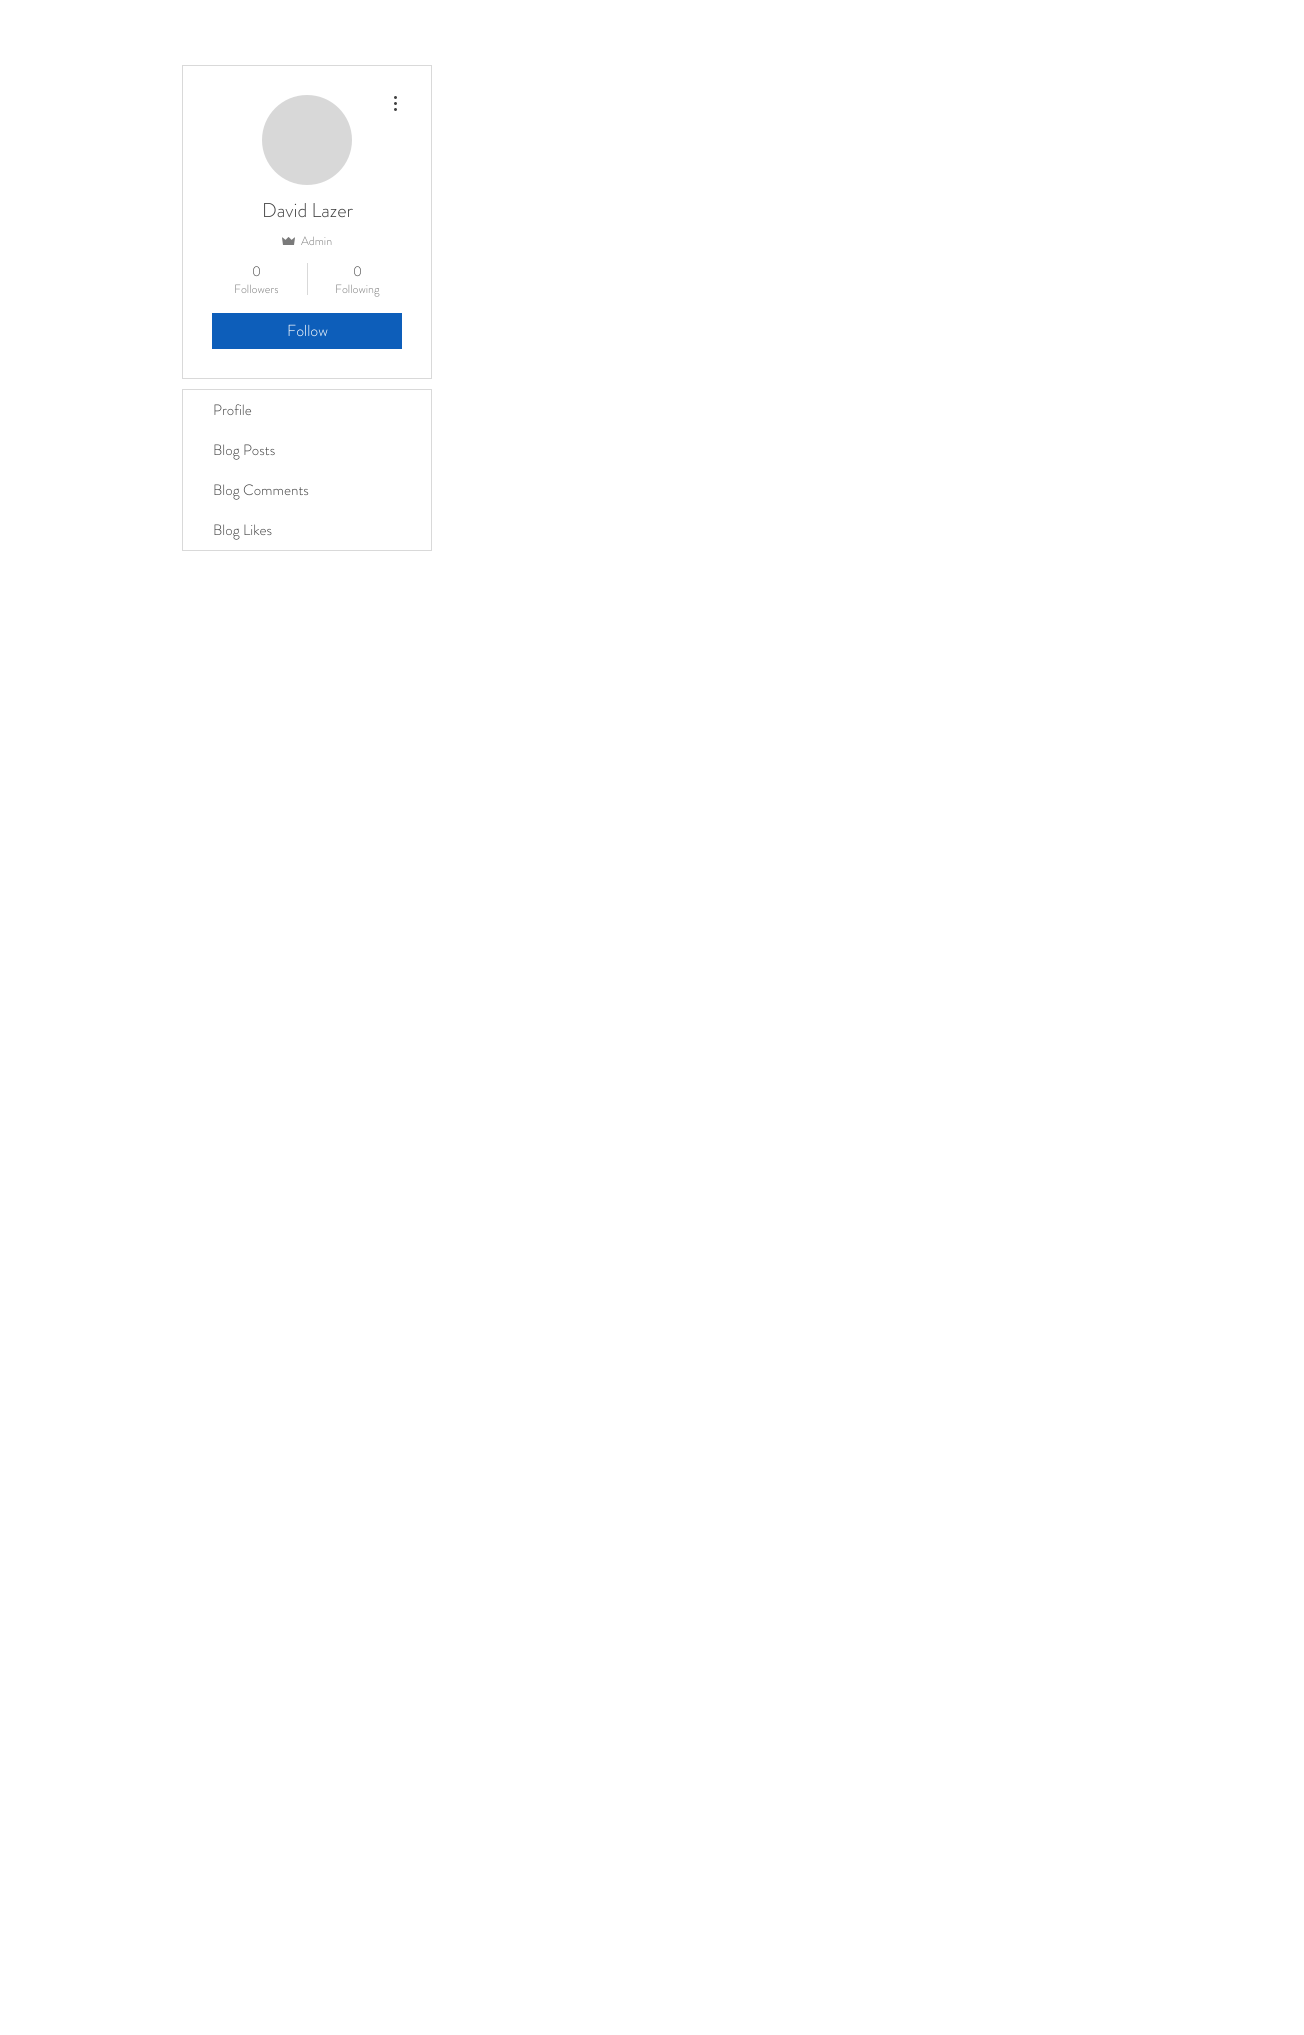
#include <cairo/cairo.h>
#include <math.h>
#include <stddef.h>

static cairo_t *cr;

static void use_color(int r, int g, int b) {
  cairo_set_source_rgb(cr, r / 255.0, g / 255.0, b / 255.0);
}

static void text(double x, double y, const char *s, const char *family, double size, int italic, int bold, int r, int g, int b) {
  cairo_select_font_face(cr, family, italic ? CAIRO_FONT_SLANT_ITALIC : CAIRO_FONT_SLANT_NORMAL,
    bold ? CAIRO_FONT_WEIGHT_BOLD : CAIRO_FONT_WEIGHT_NORMAL);
  cairo_set_font_size(cr, size);
  use_color(r, g, b);
  cairo_move_to(cr, x, y);
  cairo_show_text(cr, s);
}

static void box(double x, double y, double w, double h, int r, int g, int b) {
  use_color(r, g, b);
  cairo_rectangle(cr, x, y, w, h);
  cairo_fill(cr);
}

static void picture(const char *path, double x, double y, double w, double h) {
  cairo_surface_t *image = cairo_image_surface_create_from_png(path);
  cairo_save(cr);
  cairo_set_source_surface(cr, image, x, y);
  cairo_rectangle(cr, x, y, w, h);
  cairo_fill(cr);
  cairo_restore(cr);
  cairo_surface_destroy(image);
}

static void draw(void) {
  use_color(255, 255, 255);
  cairo_paint(cr);
  cairo_rectangle(cr, 182.5, 65.5, 249, 313);
  use_color(217, 217, 217);
  cairo_set_line_width(cr, 1);
  cairo_stroke(cr);
  use_color(216, 216, 216);
  cairo_arc(cr, 307, 140, 45, 0, 2 * M_PI);
  cairo_fill(cr);
  picture("img_01.png", 394, 96, 3, 15);
  picture("img_02.png", 282, 237, 13, 8);
  box(307, 263, 1, 32, 217, 217, 217);
  box(212, 313, 190, 36, 13, 94, 186);
  cairo_rectangle(cr, 182.5, 389.5, 249, 161);
  use_color(217, 217, 217);
  cairo_stroke(cr);
  text(262, 217, "David Lazer", "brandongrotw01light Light", 20, 0, 0, 65, 65, 65);
  text(301, 245, "Admin", "brandongrotw01light Light", 12, 0, 0, 122, 122, 122);
  text(252, 276, "0", "brandongrotw01light Light", 14, 0, 0, 65, 65, 65);
  text(234, 293, "Followers", "brandongrotw01light Light", 12, 0, 0, 122, 122, 122);
  text(353, 276, "0", "brandongrotw01light Light", 14, 0, 0, 65, 65, 65);
  text(335, 293, "Following", "brandongrotw01light Light", 12, 0, 0, 122, 122, 122);
  text(287, 336, "Follow", "brandongrotw01light Light", 16, 0, 0, 255, 255, 255);
  text(213, 415, "Profile", "brandongrotw01light Light", 15, 0, 0, 65, 65, 65);
  text(213, 455, "Blog Posts", "brandongrotw01light Light", 15, 0, 0, 65, 65, 65);
  text(213, 495, "Blog Comments", "brandongrotw01light Light", 15, 0, 0, 65, 65, 65);
  text(213, 535, "Blog Likes", "brandongrotw01light Light", 15, 0, 0, 65, 65, 65);
}

int main(void) {
  cairo_surface_t *surface = cairo_image_surface_create(CAIRO_FORMAT_RGB24, 1304, 2035);
  cr = cairo_create(surface);
  cairo_font_options_t *options = cairo_font_options_create();
  cairo_font_options_set_hint_metrics(options, CAIRO_HINT_METRICS_OFF);
  cairo_font_options_set_hint_style(options, CAIRO_HINT_STYLE_NONE);
  cairo_set_font_options(cr, options);
  cairo_set_miter_limit(cr, 4);
  draw();
  cairo_surface_write_to_png(surface, "out.png");
  cairo_font_options_destroy(options);
  cairo_destroy(cr);
  cairo_surface_destroy(surface);
  return 0;
}
